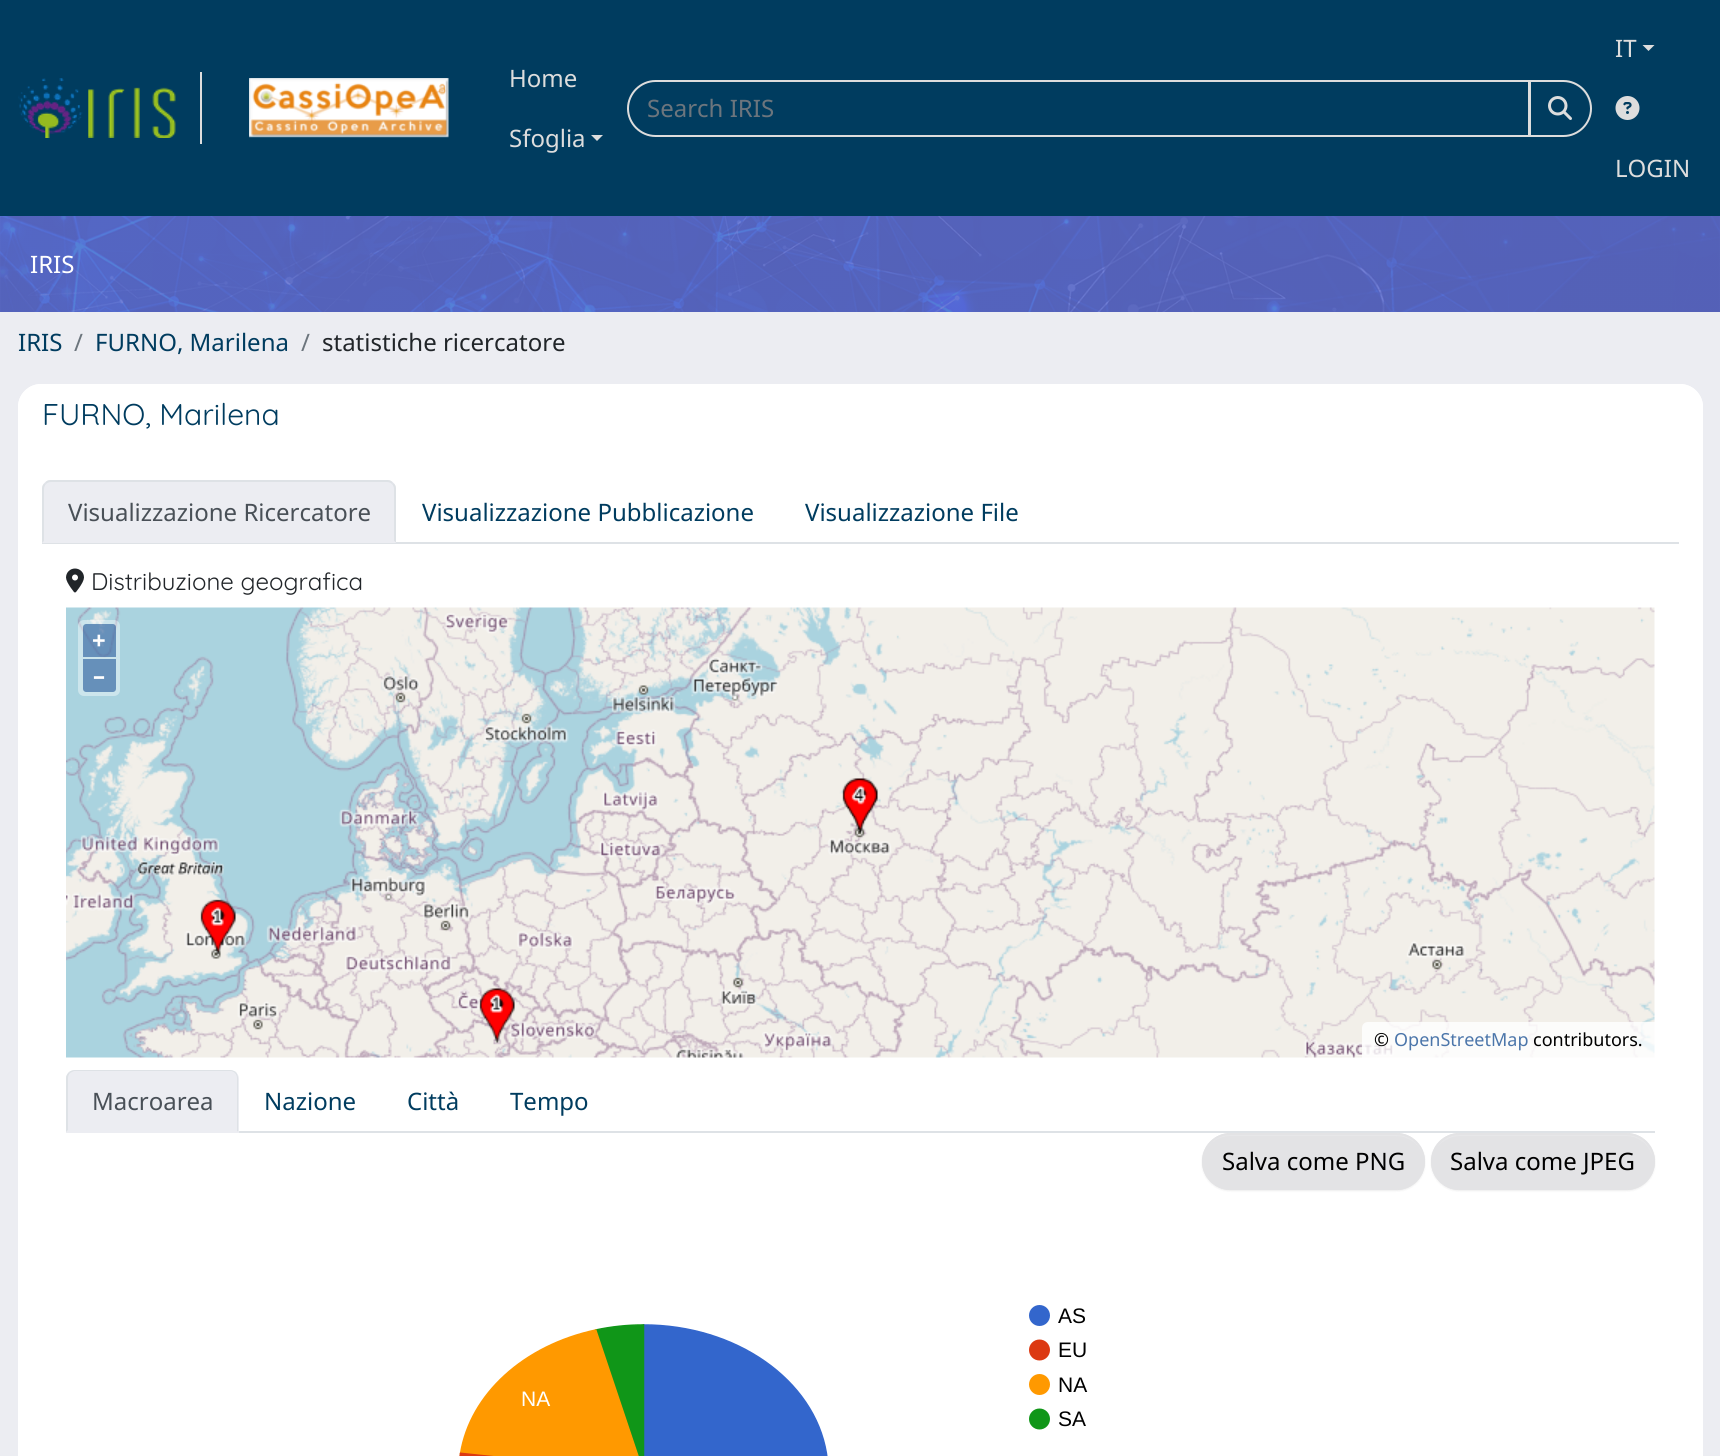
#include <cairo/cairo.h>
#include <math.h>
#include <stddef.h>

static cairo_t *cr;

static void use_color(int r, int g, int b) {
  cairo_set_source_rgb(cr, r / 255.0, g / 255.0, b / 255.0);
}

static void text(double x, double y, const char *s, const char *family, double size, int italic, int bold, int r, int g, int b) {
  cairo_select_font_face(cr, family, italic ? CAIRO_FONT_SLANT_ITALIC : CAIRO_FONT_SLANT_NORMAL,
    bold ? CAIRO_FONT_WEIGHT_BOLD : CAIRO_FONT_WEIGHT_NORMAL);
  cairo_set_font_size(cr, size);
  use_color(r, g, b);
  cairo_move_to(cr, x, y);
  cairo_show_text(cr, s);
}

static void box(double x, double y, double w, double h, int r, int g, int b) {
  use_color(r, g, b);
  cairo_rectangle(cr, x, y, w, h);
  cairo_fill(cr);
}

static void round_rect(double x, double y, double w, double h, double r) {
  cairo_new_sub_path(cr);
  cairo_arc(cr, x + w - r, y + h - r, r, 0, M_PI / 2);
  cairo_arc(cr, x + r, y + h - r, r, M_PI / 2, M_PI);
  cairo_arc(cr, x + r, y + r, r, M_PI, 1.5 * M_PI);
  cairo_arc(cr, x + w - r, y + r, r, 1.5 * M_PI, 2 * M_PI);
  cairo_close_path(cr);
}

static void shadow(double x, double y, double w, double h, double r, double blur, double alpha) {
  cairo_push_group_with_content(cr, CAIRO_CONTENT_ALPHA);
  cairo_set_operator(cr, CAIRO_OPERATOR_SOURCE);
  for (int i = 15; i >= -15 && fmin(w, h) + blur * i / 3 > 0; i -= 2) {
    double e = blur * i / 6;
    cairo_set_source_rgba(cr, 0, 0, 0, alpha * erfc((i - 1) / 8.5) / 2);
    round_rect(x - e, y - e, w + 2 * e, h + 2 * e, fmax(0, fmin(r + e + blur * .6, fmin(w, h) / 2 + e)));
    cairo_fill(cr);
  }
  cairo_pattern_t *soft = cairo_pop_group(cr);
  cairo_mask(cr, soft);
  cairo_pattern_destroy(soft);
}

static void picture(const char *path, double x, double y, double w, double h) {
  cairo_surface_t *image = cairo_image_surface_create_from_png(path);
  cairo_save(cr);
  cairo_set_source_surface(cr, image, x, y);
  cairo_rectangle(cr, x, y, w, h);
  cairo_fill(cr);
  cairo_restore(cr);
  cairo_surface_destroy(image);
}

static void draw(void) {
  use_color(236, 237, 242);
  cairo_paint(cr);
  box(0, 0, 1720, 216, 0, 60, 95);
  box(200, 72, 2, 72, 221, 221, 221);
  picture("img_01.png", 18, 78, 158, 60);
  picture("img_02.png", 249, 78, 200, 60);
  cairo_new_path(cr);
  cairo_move_to(cr, 591, 135);
  cairo_line_to(cr, 603, 135);
  cairo_line_to(cr, 597, 141);
  cairo_close_path(cr);
  cairo_fill(cr);
  cairo_new_path(cr);
  cairo_move_to(cr, 655.5, 81);
  cairo_line_to(cr, 1529, 81);
  cairo_line_to(cr, 1529, 136);
  cairo_line_to(cr, 655.5, 136);
  cairo_curve_to(cr, 640.5, 136, 628, 123.5, 628, 108.5);
  cairo_curve_to(cr, 628, 93.5, 640.5, 81, 655.5, 81);
  cairo_close_path(cr);
  cairo_stroke(cr);
  use_color(0, 0, 0);
  shadow(1529, 81, 63, 57, 28.5, 1, 0.07);
  use_color(0, 60, 95);
  cairo_new_path(cr);
  cairo_move_to(cr, 1529, 80);
  cairo_line_to(cr, 1563.5, 80);
  cairo_curve_to(cr, 1579, 80, 1592, 93, 1592, 108.5);
  cairo_curve_to(cr, 1592, 124, 1579, 137, 1563.5, 137);
  cairo_line_to(cr, 1529, 137);
  cairo_close_path(cr);
  cairo_fill(cr);
  use_color(38, 89, 119);
  cairo_new_path(cr);
  cairo_move_to(cr, 1530, 82);
  cairo_line_to(cr, 1563, 82);
  cairo_curve_to(cr, 1578, 82, 1589, 94, 1590, 109);
  cairo_line_to(cr, 1590, 108);
  cairo_curve_to(cr, 1590, 93, 1578, 81, 1563, 81);
  cairo_line_to(cr, 1530, 81);
  cairo_close_path(cr);
  cairo_fill(cr);
  cairo_new_path(cr);
  cairo_move_to(cr, 1530, 81);
  cairo_line_to(cr, 1563.5, 81);
  cairo_curve_to(cr, 1578.5, 81, 1591, 93.5, 1591, 108.5);
  cairo_curve_to(cr, 1591, 123.5, 1578.5, 136, 1563.5, 136);
  cairo_line_to(cr, 1530, 136);
  cairo_close_path(cr);
  use_color(221, 221, 221);
  cairo_stroke(cr);
  picture("img_03.png", 1548, 96, 24, 24);
  cairo_new_path(cr);
  cairo_move_to(cr, 1642.5, 45);
  cairo_line_to(cr, 1654.5, 45);
  cairo_line_to(cr, 1648.5, 51);
  cairo_close_path(cr);
  cairo_fill(cr);
  picture("img_04.png", 1615, 96, 25, 24);
  picture("img_05.png", 0, 216, 1720, 96);
  use_color(255, 255, 255);
  round_rect(18, 384, 1685, 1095, 23);
  cairo_fill(cr);
  cairo_new_path(cr);
  cairo_move_to(cr, 41, 384);
  cairo_line_to(cr, 1680, 384);
  cairo_curve_to(cr, 1692.5, 384, 1703, 394.5, 1703, 407);
  cairo_line_to(cr, 1703, 456);
  cairo_line_to(cr, 18, 456);
  cairo_line_to(cr, 18, 407);
  cairo_curve_to(cr, 18, 394.5, 28.5, 384, 41, 384);
  cairo_close_path(cr);
  cairo_fill(cr);
  box(42, 542, 1637, 2, 222, 226, 230);
  use_color(236, 237, 242);
  cairo_new_path(cr);
  cairo_move_to(cr, 51, 480);
  cairo_line_to(cr, 387, 480);
  cairo_curve_to(cr, 392, 480, 396, 484, 396, 489);
  cairo_line_to(cr, 396, 543);
  cairo_line_to(cr, 42, 543);
  cairo_line_to(cr, 42, 489);
  cairo_curve_to(cr, 42, 484, 46, 480, 51, 480);
  cairo_close_path(cr);
  cairo_fill(cr);
  use_color(222, 226, 230);
  cairo_new_path(cr);
  cairo_move_to(cr, 51, 480);
  cairo_curve_to(cr, 48, 480, 46, 481, 45, 483);
  cairo_line_to(cr, 46, 484);
  cairo_curve_to(cr, 47, 483, 49, 482, 51, 482);
  cairo_line_to(cr, 387, 482);
  cairo_curve_to(cr, 389, 482, 391, 483, 392, 484);
  cairo_line_to(cr, 393, 483);
  cairo_curve_to(cr, 392, 481, 390, 480, 387, 480);
  cairo_close_path(cr);
  cairo_fill(cr);
  cairo_new_path(cr);
  cairo_move_to(cr, 396, 543);
  cairo_line_to(cr, 396, 489);
  cairo_curve_to(cr, 396, 486, 395, 484, 393, 483);
  cairo_line_to(cr, 392, 484);
  cairo_curve_to(cr, 393, 485, 394, 487, 394, 489);
  cairo_line_to(cr, 394, 541);
  cairo_close_path(cr);
  cairo_fill(cr);
  use_color(236, 237, 242);
  cairo_new_path(cr);
  cairo_move_to(cr, 396, 543);
  cairo_line_to(cr, 394, 541);
  cairo_line_to(cr, 394, 542);
  cairo_line_to(cr, 44, 542);
  cairo_line_to(cr, 44, 541);
  cairo_line_to(cr, 42, 543);
  cairo_close_path(cr);
  cairo_fill(cr);
  use_color(222, 226, 230);
  cairo_new_path(cr);
  cairo_move_to(cr, 42, 543);
  cairo_line_to(cr, 44, 541);
  cairo_line_to(cr, 44, 489);
  cairo_curve_to(cr, 44, 487, 45, 485, 46, 484);
  cairo_line_to(cr, 45, 483);
  cairo_curve_to(cr, 43, 484, 42, 486, 42, 489);
  cairo_close_path(cr);
  cairo_fill(cr);
  picture("img_06.png", 66, 568, 18, 25);
  picture("img_07.png", 66, 607, 1589, 451);
  cairo_set_source_rgba(cr, 1, 1, 1, 0.4);
  round_rect(78, 620, 42, 76, 6);
  cairo_fill(cr);
  cairo_set_source_rgba(cr, 0, 0.235, 0.533, 0.5);
  cairo_new_path(cr);
  cairo_move_to(cr, 86, 624);
  cairo_line_to(cr, 113, 624);
  cairo_curve_to(cr, 114.5, 624, 116, 625.5, 116, 627);
  cairo_line_to(cr, 116, 657);
  cairo_line_to(cr, 83, 657);
  cairo_line_to(cr, 83, 627);
  cairo_curve_to(cr, 83, 625.5, 84.5, 624, 86, 624);
  cairo_close_path(cr);
  cairo_fill(cr);
  use_color(102, 144, 186);
  cairo_new_path(cr);
  cairo_move_to(cr, 83, 659);
  cairo_line_to(cr, 116, 659);
  cairo_line_to(cr, 116, 689);
  cairo_curve_to(cr, 116, 690.5, 114.5, 692, 113, 692);
  cairo_line_to(cr, 86, 692);
  cairo_curve_to(cr, 84.5, 692, 83, 690.5, 83, 689);
  cairo_close_path(cr);
  cairo_fill(cr);
  cairo_set_source_rgba(cr, 1, 1, 1, 0.8);
  cairo_new_path(cr);
  cairo_move_to(cr, 1368, 1022);
  cairo_line_to(cr, 1655, 1022);
  cairo_line_to(cr, 1655, 1058);
  cairo_line_to(cr, 1362, 1058);
  cairo_line_to(cr, 1362, 1028);
  cairo_curve_to(cr, 1362, 1024.5, 1364.5, 1022, 1368, 1022);
  cairo_close_path(cr);
  cairo_fill(cr);
  box(239, 1131, 1416, 2, 222, 226, 230);
  use_color(236, 237, 242);
  cairo_new_path(cr);
  cairo_move_to(cr, 75, 1070);
  cairo_line_to(cr, 230, 1070);
  cairo_curve_to(cr, 235, 1070, 239, 1074, 239, 1079);
  cairo_line_to(cr, 239, 1133);
  cairo_line_to(cr, 66, 1133);
  cairo_line_to(cr, 66, 1079);
  cairo_curve_to(cr, 66, 1074, 70, 1070, 75, 1070);
  cairo_close_path(cr);
  cairo_fill(cr);
  use_color(222, 226, 230);
  cairo_new_path(cr);
  cairo_move_to(cr, 75, 1070);
  cairo_curve_to(cr, 73, 1070, 70, 1071, 69, 1072);
  cairo_line_to(cr, 70, 1073);
  cairo_line_to(cr, 74, 1071);
  cairo_line_to(cr, 231, 1071);
  cairo_curve_to(cr, 232, 1071, 234, 1072, 235, 1073);
  cairo_line_to(cr, 236, 1072);
  cairo_curve_to(cr, 234, 1071, 232, 1070, 230, 1070);
  cairo_close_path(cr);
  cairo_fill(cr);
  cairo_new_path(cr);
  cairo_move_to(cr, 238, 1132);
  cairo_line_to(cr, 238, 1078);
  cairo_curve_to(cr, 238, 1076, 237, 1074, 236, 1072);
  cairo_line_to(cr, 235, 1073);
  cairo_curve_to(cr, 236, 1074, 237, 1076, 237, 1078);
  cairo_line_to(cr, 237, 1131);
  cairo_close_path(cr);
  cairo_fill(cr);
  use_color(236, 237, 242);
  cairo_new_path(cr);
  cairo_move_to(cr, 238, 1132);
  cairo_line_to(cr, 237, 1131);
  cairo_line_to(cr, 68, 1131);
  cairo_line_to(cr, 68, 1130);
  cairo_line_to(cr, 66, 1132);
  cairo_close_path(cr);
  cairo_fill(cr);
  use_color(222, 226, 230);
  cairo_new_path(cr);
  cairo_move_to(cr, 66, 1078);
  cairo_line_to(cr, 66, 1132);
  cairo_line_to(cr, 68, 1130);
  cairo_line_to(cr, 68, 1078);
  cairo_curve_to(cr, 68, 1076, 69, 1074, 70, 1073);
  cairo_line_to(cr, 69, 1072);
  cairo_curve_to(cr, 67, 1074, 66, 1076, 66, 1078);
  cairo_close_path(cr);
  cairo_fill(cr);
  use_color(0, 0, 0);
  shadow(1202, 1134, 223, 57, 28.5, 1, 0.07);
  use_color(227, 227, 229);
  round_rect(1202, 1133, 223, 57, 28.5);
  cairo_fill(cr);
  use_color(231, 231, 233);
  cairo_new_path(cr);
  cairo_move_to(cr, 1230, 1136);
  cairo_line_to(cr, 1396, 1136);
  cairo_curve_to(cr, 1411, 1136, 1424, 1148, 1424, 1162);
  cairo_line_to(cr, 1424, 1161);
  cairo_curve_to(cr, 1424, 1146, 1412, 1134, 1397, 1134);
  cairo_line_to(cr, 1230, 1134);
  cairo_curve_to(cr, 1215, 1134, 1203, 1146, 1203, 1161);
  cairo_line_to(cr, 1203, 1162);
  cairo_curve_to(cr, 1203, 1148, 1215, 1136, 1230, 1136);
  cairo_close_path(cr);
  cairo_fill(cr);
  round_rect(1203, 1134, 221, 55, 27.5);
  use_color(227, 227, 229);
  cairo_stroke(cr);
  use_color(0, 0, 0);
  shadow(1431, 1134, 224, 57, 28.5, 1, 0.07);
  use_color(227, 227, 229);
  round_rect(1431, 1133, 224, 57, 28.5);
  cairo_fill(cr);
  use_color(231, 231, 233);
  cairo_new_path(cr);
  cairo_move_to(cr, 1460, 1136);
  cairo_line_to(cr, 1626, 1136);
  cairo_curve_to(cr, 1641, 1136, 1653, 1148, 1653, 1162);
  cairo_line_to(cr, 1653, 1161);
  cairo_curve_to(cr, 1653, 1146, 1641, 1134, 1626, 1134);
  cairo_line_to(cr, 1460, 1134);
  cairo_curve_to(cr, 1449, 1134, 1440, 1141, 1435, 1150);
  cairo_curve_to(cr, 1440, 1142, 1450, 1136, 1460, 1136);
  cairo_close_path(cr);
  cairo_fill(cr);
  round_rect(1432, 1134, 222, 55, 27.5);
  use_color(227, 227, 229);
  cairo_stroke(cr);
  picture("img_08.png", 459, 1305, 591, 151);
  text(509, 87, "Home", "Noto Sans", 24, 0, 0, 221, 221, 221);
  text(509, 147, "Sfoglia", "Noto Sans", 24, 0, 0, 221, 221, 221);
  text(647, 117, "Search IRIS", "Noto Sans", 24, 0, 0, 108, 117, 125);
  text(1615, 57, "IT", "Noto Sans", 24, 0, 0, 221, 221, 221);
  text(1615, 177, "LOGIN", "Noto Sans", 24, 0, 0, 221, 221, 221);
  text(30, 273, "IRIS", "Noto Sans", 24, 0, 0, 255, 255, 255);
  text(18, 351, "IRIS", "Noto Sans", 24, 0, 0, 0, 60, 95);
  text(74, 351, "/", "Noto Sans", 24, 0, 0, 108, 117, 125);
  text(95, 351, "FURNO, Marilena", "Noto Sans", 24, 0, 0, 0, 60, 95);
  text(301, 351, "/", "Noto Sans", 24, 0, 0, 108, 117, 125);
  text(322, 351, "statistiche ricercatore", "Noto Sans", 24, 0, 0, 33, 37, 41);
  text(42, 425, "FURNO, Marilena", "Quicksand Light", 30, 0, 0, 0, 60, 95);
  text(68, 521, "Visualizzazione Ricercatore", "Noto Sans", 24, 0, 0, 73, 80, 87);
  text(422, 521, "Visualizzazione Pubblicazione", "Noto Sans", 24, 0, 0, 0, 60, 95);
  text(805, 521, "Visualizzazione File", "Noto Sans", 24, 0, 0, 0, 60, 95);
  text(91, 590, "Distribuzione geografica", "Quicksand Light", 24, 0, 0, 33, 37, 41);
  text(92, 649, "+", "Noto Sans", 24, 0, 1, 255, 255, 255);
  text(93, 684, "–", "Noto Sans", 24, 0, 1, 255, 255, 255);
  text(1374, 1046, "©", "Noto Sans", 18, 0, 0, 0, 0, 0);
  text(1394, 1046, "OpenStreetMap", "Noto Sans", 18, 0, 0, 76, 118, 170);
  text(1533, 1046, "contributors.", "Noto Sans", 18, 0, 0, 0, 0, 0);
  text(92, 1110, "Macroarea", "Noto Sans", 24, 0, 0, 73, 80, 87);
  text(264, 1110, "Nazione", "Noto Sans", 24, 0, 0, 0, 60, 95);
  text(407, 1110, "Città", "Noto Sans", 24, 0, 0, 0, 60, 95);
  text(510, 1110, "Tempo", "Noto Sans", 24, 0, 0, 0, 60, 95);
  text(1222, 1170, "Salva come PNG", "Noto Sans", 24, 0, 0, 0, 0, 0);
  text(1450, 1170, "Salva come JPEG", "Noto Sans", 24, 0, 0, 0, 0, 0);
  text(1058, 1323, "AS", "Liberation Sans", 21, 0, 0, 0, 0, 0);
  text(1058, 1357, "EU", "Liberation Sans", 21, 0, 0, 0, 0, 0);
  text(1058, 1392, "NA", "Liberation Sans", 21, 0, 0, 0, 0, 0);
  text(521, 1406, "NA", "Liberation Sans", 21, 0, 0, 255, 255, 255);
  text(1058, 1426, "SA", "Liberation Sans", 21, 0, 0, 0, 0, 0);
}

int main(void) {
  cairo_surface_t *surface = cairo_image_surface_create(CAIRO_FORMAT_RGB24, 1720, 1456);
  cr = cairo_create(surface);
  cairo_font_options_t *options = cairo_font_options_create();
  cairo_font_options_set_hint_metrics(options, CAIRO_HINT_METRICS_OFF);
  cairo_font_options_set_hint_style(options, CAIRO_HINT_STYLE_NONE);
  cairo_set_font_options(cr, options);
  cairo_set_miter_limit(cr, 4);
  draw();
  cairo_surface_write_to_png(surface, "out.png");
  cairo_font_options_destroy(options);
  cairo_destroy(cr);
  cairo_surface_destroy(surface);
  return 0;
}
